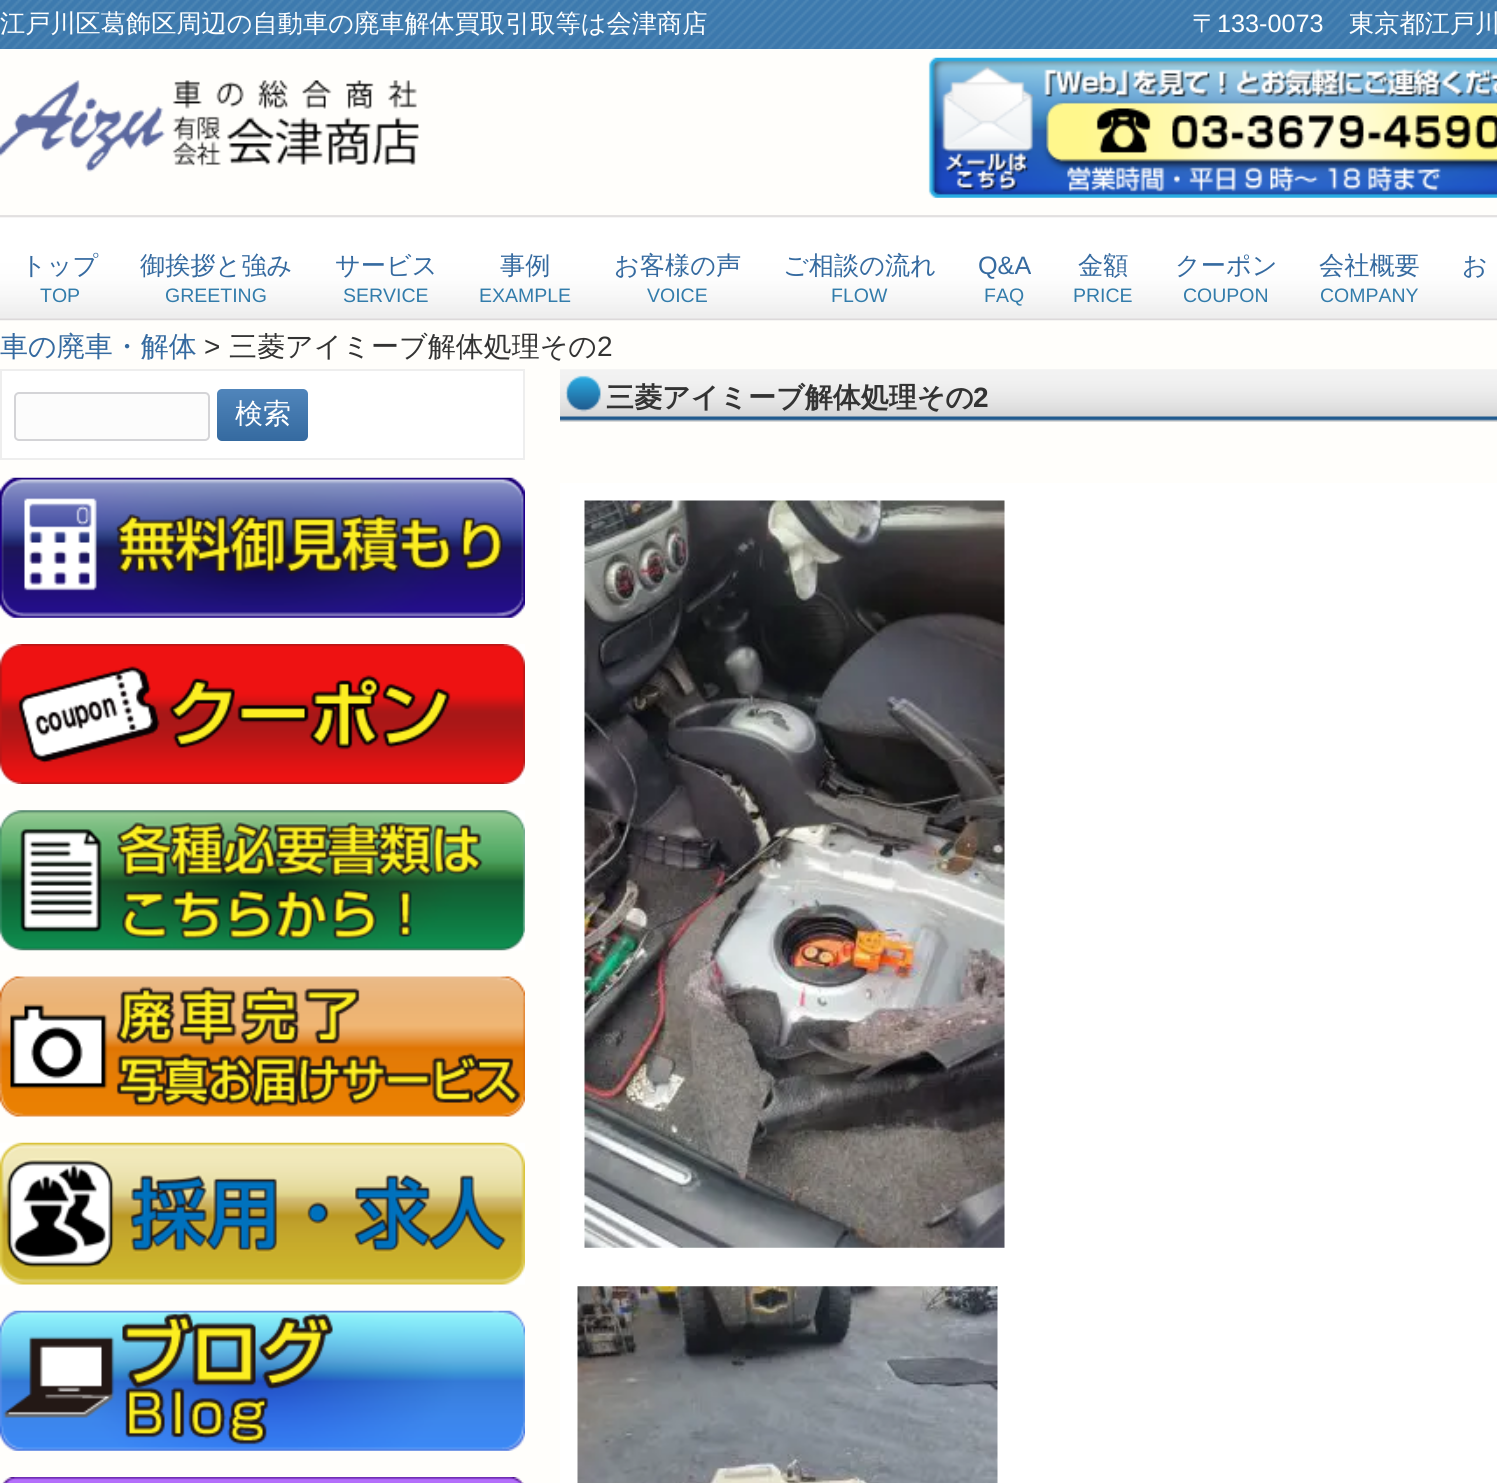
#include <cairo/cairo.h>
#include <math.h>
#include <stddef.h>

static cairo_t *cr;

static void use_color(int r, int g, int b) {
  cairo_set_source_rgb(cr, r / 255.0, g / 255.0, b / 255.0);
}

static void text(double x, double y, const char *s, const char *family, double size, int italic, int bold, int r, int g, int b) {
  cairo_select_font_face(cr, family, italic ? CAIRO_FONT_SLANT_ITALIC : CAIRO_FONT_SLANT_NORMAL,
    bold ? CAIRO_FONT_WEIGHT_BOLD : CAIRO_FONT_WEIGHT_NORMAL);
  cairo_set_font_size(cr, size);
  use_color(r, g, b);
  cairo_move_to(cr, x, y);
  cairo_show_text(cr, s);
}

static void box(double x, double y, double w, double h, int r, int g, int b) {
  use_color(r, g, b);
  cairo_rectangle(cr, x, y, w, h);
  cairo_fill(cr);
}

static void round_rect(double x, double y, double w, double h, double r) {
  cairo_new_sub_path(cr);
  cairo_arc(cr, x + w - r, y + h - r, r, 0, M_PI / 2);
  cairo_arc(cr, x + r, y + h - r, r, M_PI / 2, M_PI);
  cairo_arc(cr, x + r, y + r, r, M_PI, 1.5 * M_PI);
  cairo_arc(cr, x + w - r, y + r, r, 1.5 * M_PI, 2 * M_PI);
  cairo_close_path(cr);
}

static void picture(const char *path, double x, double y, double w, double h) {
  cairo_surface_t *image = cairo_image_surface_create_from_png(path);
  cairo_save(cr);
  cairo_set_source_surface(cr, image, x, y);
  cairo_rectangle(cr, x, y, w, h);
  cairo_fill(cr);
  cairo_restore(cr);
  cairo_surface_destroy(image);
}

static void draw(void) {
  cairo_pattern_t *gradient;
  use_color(255, 254, 251);
  cairo_paint(cr);
  picture("img_01.png", 0, 0, 1497, 49);
  picture("img_02.png", 0, 80, 419, 92);
  picture("img_03.png", 928, 57, 569, 141);
  picture("img_04.png", 0, 215, 1497, 106);
  use_color(255, 255, 255);
  cairo_rectangle(cr, 1, 370, 523, 89);
  cairo_fill_preserve(cr);
  use_color(238, 238, 238);
  cairo_stroke(cr);
  use_color(252, 252, 252);
  round_rect(15, 393, 194, 47, 4);
  cairo_fill_preserve(cr);
  use_color(212, 212, 215);
  cairo_stroke(cr);
  gradient = cairo_pattern_create_linear(263, 389, 263, 441);
  cairo_pattern_add_color_stop_rgba(gradient, 0, 0.314, 0.522, 0.733, 1);
  cairo_pattern_add_color_stop_rgba(gradient, 1, 0.208, 0.416, 0.627, 1);
  cairo_set_source(cr, gradient);
  cairo_pattern_destroy(gradient);
  round_rect(217, 389, 91, 52, 5);
  cairo_fill(cr);
  picture("img_05.png", 0, 477, 525, 141);
  picture("img_06.png", 0, 644, 525, 140);
  picture("img_07.png", 0, 810, 525, 141);
  picture("img_08.png", 0, 976, 525, 141);
  picture("img_09.png", 0, 1142, 525, 143);
  picture("img_10.png", 0, 1310, 525, 141);
  picture("img_11.png", 2, 1477, 522, 6);
  picture("img_12.png", 560, 369, 937, 53);
  box(560, 483, 937, 1000, 255, 255, 255);
  picture("img_13.png", 584, 500, 421, 748);
  picture("img_14.png", 577, 1286, 421, 197);
  text(0, 32, "江戸川区葛飾区周辺の自動車の廃車解体買取引取等は会津商店", "WenQuanYi Zen Hei Medium", 25.2, 0, 0, 255, 255, 255);
  text(1192, 32, "〒", "WenQuanYi Zen Hei Medium", 25.2, 0, 0, 255, 255, 255);
  text(1217, 32, "133-0073", "Liberation Sans", 25.2, 0, 0, 255, 255, 255);
  text(1349, 32, "東京都江戸川", "WenQuanYi Zen Hei Medium", 25.2, 0, 0, 255, 255, 255);
  text(21, 274, "トップ", "WenQuanYi Zen Hei Medium", 25.2, 0, 0, 53, 106, 160);
  text(40, 302, "TOP", "Liberation Sans", 19.5, 0, 0, 50, 124, 171);
  text(140, 274, "御挨拶と強み", "WenQuanYi Zen Hei Medium", 25.2, 0, 0, 53, 106, 160);
  text(165, 302, "GREETING", "Liberation Sans", 19.5, 0, 0, 50, 124, 171);
  text(335, 274, "サービス", "WenQuanYi Zen Hei Medium", 25.2, 0, 0, 53, 106, 160);
  text(343, 302, "SERVICE", "Liberation Sans", 19.5, 0, 0, 50, 124, 171);
  text(500, 274, "事例", "WenQuanYi Zen Hei Medium", 25.2, 0, 0, 53, 106, 160);
  text(479, 302, "EXAMPLE", "Liberation Sans", 19.5, 0, 0, 50, 124, 171);
  text(614, 274, "お客様の声", "WenQuanYi Zen Hei Medium", 25.2, 0, 0, 53, 106, 160);
  text(647, 302, "VOICE", "Liberation Sans", 19.5, 0, 0, 50, 124, 171);
  text(783, 274, "ご相談の流れ", "WenQuanYi Zen Hei Medium", 25.2, 0, 0, 53, 106, 160);
  text(831, 302, "FLOW", "Liberation Sans", 19.5, 0, 0, 50, 124, 171);
  text(978, 274, "Q&A", "Liberation Sans", 25.2, 0, 0, 53, 106, 160);
  text(984, 302, "FAQ", "Liberation Sans", 19.5, 0, 0, 50, 124, 171);
  text(1078, 274, "金額", "WenQuanYi Zen Hei Medium", 25.2, 0, 0, 53, 106, 160);
  text(1073, 302, "PRICE", "Liberation Sans", 19.5, 0, 0, 50, 124, 171);
  text(1175, 274, "クーポン", "WenQuanYi Zen Hei Medium", 25.2, 0, 0, 53, 106, 160);
  text(1183, 302, "COUPON", "Liberation Sans", 19.5, 0, 0, 50, 124, 171);
  text(1319, 274, "会社概要", "WenQuanYi Zen Hei Medium", 25.2, 0, 0, 53, 106, 160);
  text(1320, 302, "COMPANY", "Liberation Sans", 19.5, 0, 0, 50, 124, 171);
  text(1462, 274, "お", "WenQuanYi Zen Hei Medium", 25.2, 0, 0, 53, 106, 160);
  text(0, 356, "車の廃車・解体", "WenQuanYi Zen Hei Medium", 28, 0, 0, 53, 106, 160);
  text(204, 356, ">", "Liberation Sans", 28, 0, 0, 51, 51, 51);
  text(229, 356, "三菱アイミーブ解体処理その", "WenQuanYi Zen Hei Medium", 28, 0, 0, 51, 51, 51);
  text(597, 356, "2", "Liberation Sans", 28, 0, 0, 51, 51, 51);
  text(235, 423, "検索", "WenQuanYi Zen Hei Medium", 28, 0, 0, 255, 255, 255);
  text(606, 407, "三菱アイミーブ解体処理その", "WenQuanYi Zen Hei", 28, 0, 1, 51, 51, 51);
  text(973, 407, "2", "Liberation Sans", 28, 0, 1, 51, 51, 51);
}

int main(void) {
  cairo_surface_t *surface = cairo_image_surface_create(CAIRO_FORMAT_RGB24, 1497, 1483);
  cr = cairo_create(surface);
  cairo_font_options_t *options = cairo_font_options_create();
  cairo_font_options_set_hint_metrics(options, CAIRO_HINT_METRICS_OFF);
  cairo_font_options_set_hint_style(options, CAIRO_HINT_STYLE_NONE);
  cairo_set_font_options(cr, options);
  cairo_set_miter_limit(cr, 4);
  draw();
  cairo_surface_write_to_png(surface, "out.png");
  cairo_font_options_destroy(options);
  cairo_destroy(cr);
  cairo_surface_destroy(surface);
  return 0;
}
